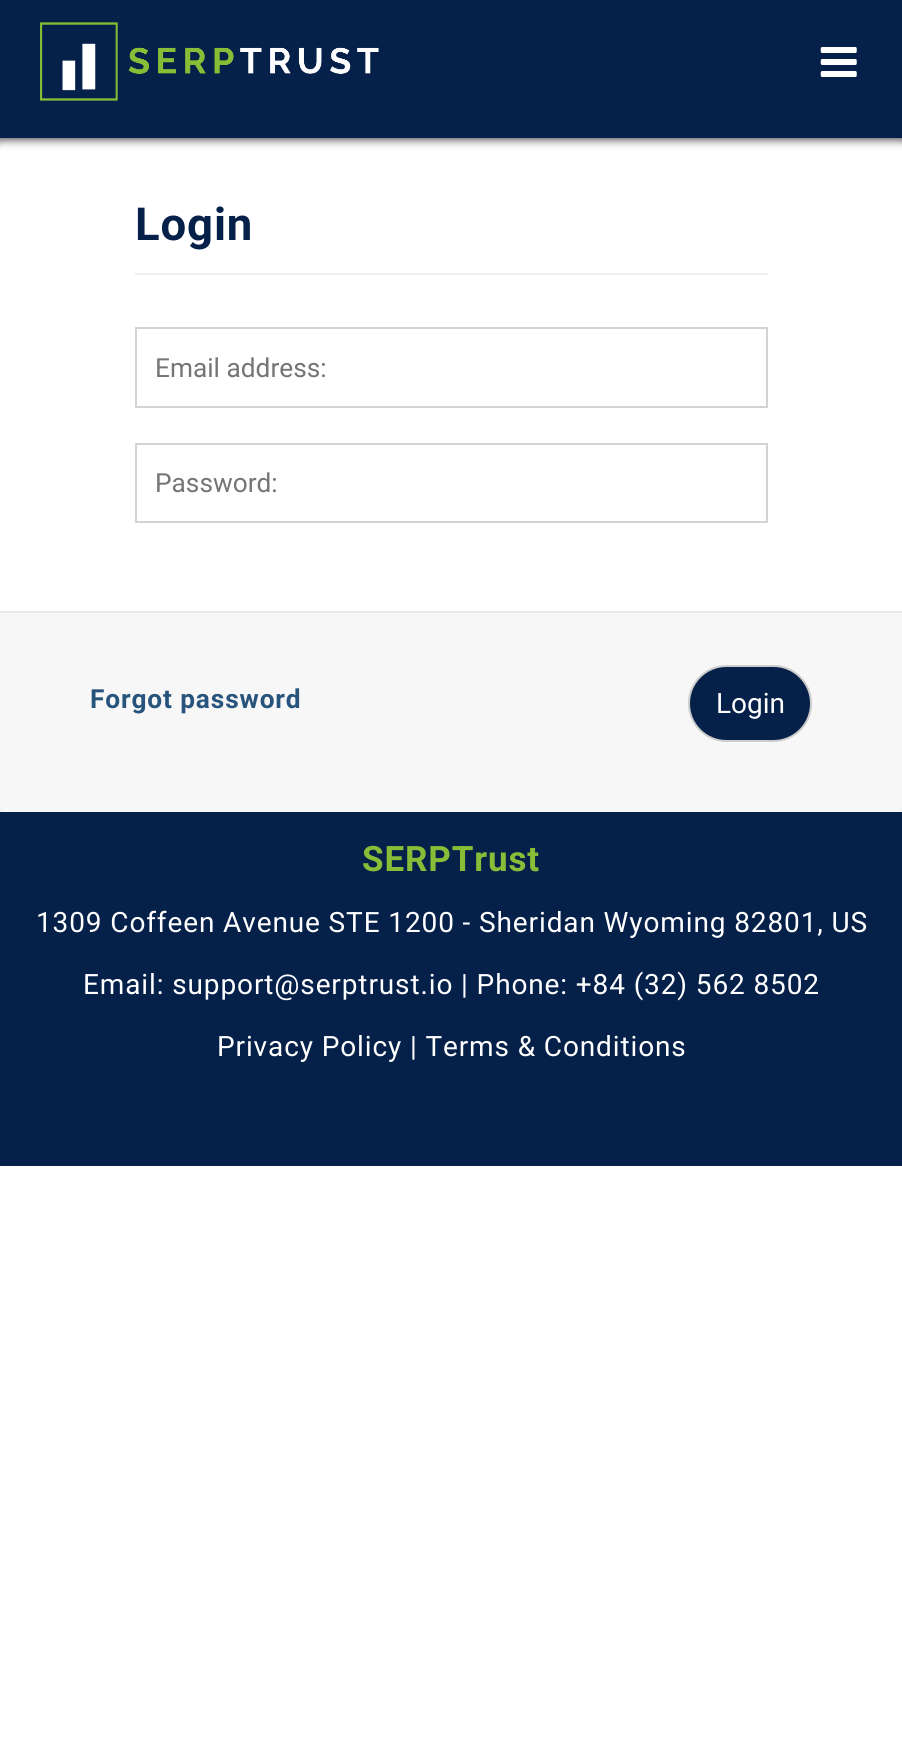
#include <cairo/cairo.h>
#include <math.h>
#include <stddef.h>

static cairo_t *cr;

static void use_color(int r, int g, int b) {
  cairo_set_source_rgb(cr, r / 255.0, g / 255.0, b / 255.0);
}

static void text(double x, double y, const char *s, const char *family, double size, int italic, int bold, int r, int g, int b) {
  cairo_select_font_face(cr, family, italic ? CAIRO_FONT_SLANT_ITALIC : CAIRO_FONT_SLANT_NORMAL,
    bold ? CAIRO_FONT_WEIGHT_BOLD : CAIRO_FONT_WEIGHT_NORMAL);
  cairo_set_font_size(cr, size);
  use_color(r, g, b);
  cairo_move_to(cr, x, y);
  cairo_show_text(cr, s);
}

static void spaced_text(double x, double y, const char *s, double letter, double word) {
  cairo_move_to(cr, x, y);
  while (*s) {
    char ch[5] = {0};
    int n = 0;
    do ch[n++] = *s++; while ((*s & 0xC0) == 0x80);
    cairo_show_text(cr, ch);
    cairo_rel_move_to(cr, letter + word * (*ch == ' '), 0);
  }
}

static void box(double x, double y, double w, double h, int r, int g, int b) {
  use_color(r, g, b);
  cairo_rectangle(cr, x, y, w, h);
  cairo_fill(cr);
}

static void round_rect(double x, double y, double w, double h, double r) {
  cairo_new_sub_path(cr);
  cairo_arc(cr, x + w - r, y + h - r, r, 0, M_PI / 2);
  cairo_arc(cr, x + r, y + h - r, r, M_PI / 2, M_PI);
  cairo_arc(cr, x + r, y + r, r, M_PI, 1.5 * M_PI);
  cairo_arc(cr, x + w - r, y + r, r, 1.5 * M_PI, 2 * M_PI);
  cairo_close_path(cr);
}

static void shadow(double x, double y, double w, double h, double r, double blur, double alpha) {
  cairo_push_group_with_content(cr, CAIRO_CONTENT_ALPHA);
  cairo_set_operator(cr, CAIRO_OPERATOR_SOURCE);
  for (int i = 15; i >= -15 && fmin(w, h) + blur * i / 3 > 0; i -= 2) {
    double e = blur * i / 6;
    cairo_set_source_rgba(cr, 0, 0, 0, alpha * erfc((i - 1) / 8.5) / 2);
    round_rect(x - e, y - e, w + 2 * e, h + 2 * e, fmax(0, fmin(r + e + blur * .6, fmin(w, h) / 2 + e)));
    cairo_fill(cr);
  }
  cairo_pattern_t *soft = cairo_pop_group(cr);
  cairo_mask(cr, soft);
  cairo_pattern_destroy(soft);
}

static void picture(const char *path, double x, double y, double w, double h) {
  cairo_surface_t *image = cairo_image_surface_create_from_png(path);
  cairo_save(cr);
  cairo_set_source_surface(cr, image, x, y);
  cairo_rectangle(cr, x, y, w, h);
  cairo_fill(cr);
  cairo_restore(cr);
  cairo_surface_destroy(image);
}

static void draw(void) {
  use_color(255, 255, 255);
  cairo_paint(cr);
  box(0, 138, 902, 674, 242, 242, 242);
  use_color(255, 255, 255);
  round_rect(0, 140, 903, 672, 9);
  cairo_fill(cr);
  use_color(85, 85, 85);
  shadow(-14, -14, 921, 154, 0, 4.5, 1);
  box(0, 0, 902, 138, 5, 32, 73);
  picture("img_01.png", 40, 22, 339, 79);
  picture("img_02.png", 820, 47, 37, 30);
  box(135, 273, 633, 2, 238, 238, 238);
  cairo_rectangle(cr, 136, 328, 631, 79);
  use_color(211, 211, 211);
  cairo_stroke(cr);
  cairo_rectangle(cr, 136, 444, 631, 78);
  cairo_stroke(cr);
  use_color(247, 247, 247);
  cairo_new_path(cr);
  cairo_move_to(cr, 0, 611);
  cairo_line_to(cr, 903, 611);
  cairo_line_to(cr, 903, 803);
  cairo_curve_to(cr, 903, 808, 899, 812, 894, 812);
  cairo_line_to(cr, 9, 812);
  cairo_curve_to(cr, 4, 812, 0, 808, 0, 803);
  cairo_close_path(cr);
  cairo_fill(cr);
  box(0, 611, 902, 2, 233, 233, 233);
  use_color(5, 32, 73);
  round_rect(689, 666, 122, 75, 37.5);
  cairo_fill_preserve(cr);
  use_color(204, 204, 204);
  cairo_stroke(cr);
  box(0, 812, 902, 354, 5, 32, 73);
  cairo_select_font_face(cr, "Roboto", CAIRO_FONT_SLANT_NORMAL, CAIRO_FONT_WEIGHT_BOLD);
  cairo_set_font_size(cr, 45.5);
  spaced_text(135, 240, "Login", 0.88, 0);
  text(155, 377, "Email address:", "Roboto", 26.25, 0, 0, 117, 117, 117);
  text(155, 492, "Password:", "Roboto", 26.25, 0, 0, 117, 117, 117);
  cairo_select_font_face(cr, "Roboto", CAIRO_FONT_SLANT_NORMAL, CAIRO_FONT_WEIGHT_BOLD);
  use_color(38, 84, 124);
  spaced_text(90, 708, "Forgot password", 0.88, 0);
  text(716, 713, "Login", "Roboto", 28, 0, 0, 255, 255, 255);
  cairo_select_font_face(cr, "Roboto", CAIRO_FONT_SLANT_NORMAL, CAIRO_FONT_WEIGHT_BOLD);
  cairo_set_font_size(cr, 35);
  use_color(136, 190, 55);
  spaced_text(362, 871, "SERPTrust", 0.88, 0);
  cairo_select_font_face(cr, "Roboto", CAIRO_FONT_SLANT_NORMAL, CAIRO_FONT_WEIGHT_NORMAL);
  cairo_set_font_size(cr, 28);
  use_color(255, 255, 255);
  spaced_text(36, 932, "1309 Coffeen Avenue STE 1200 - Sheridan Wyoming 82801, US", 0.88, 0);
  spaced_text(83, 994, "Email: support@serptrust.io | Phone: +84 (32) 562 8502", 0.88, 0);
  spaced_text(217, 1056, "Privacy Policy | Terms & Conditions", 0.88, 0);
}

int main(void) {
  cairo_surface_t *surface = cairo_image_surface_create(CAIRO_FORMAT_RGB24, 902, 1738);
  cr = cairo_create(surface);
  cairo_font_options_t *options = cairo_font_options_create();
  cairo_font_options_set_hint_metrics(options, CAIRO_HINT_METRICS_OFF);
  cairo_font_options_set_hint_style(options, CAIRO_HINT_STYLE_NONE);
  cairo_set_font_options(cr, options);
  cairo_set_miter_limit(cr, 4);
  draw();
  cairo_surface_write_to_png(surface, "out.png");
  cairo_font_options_destroy(options);
  cairo_destroy(cr);
  cairo_surface_destroy(surface);
  return 0;
}
